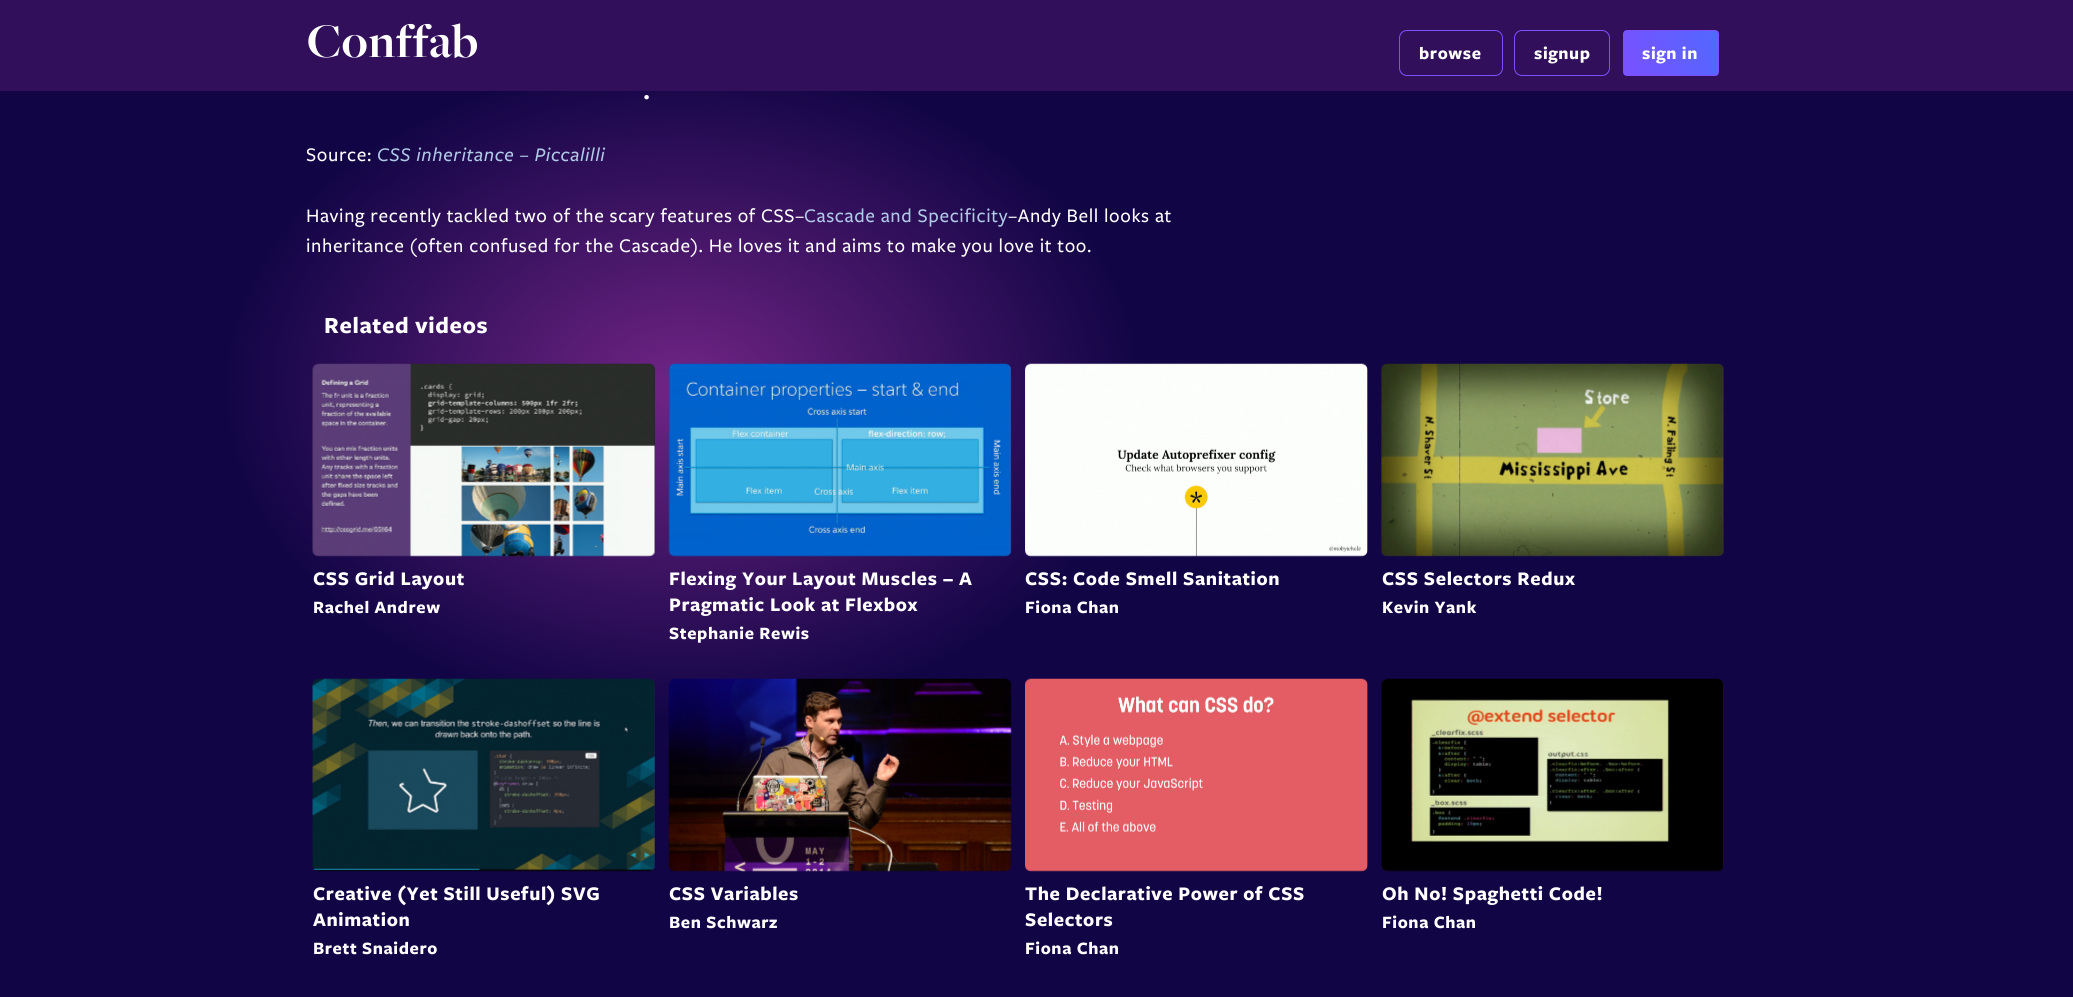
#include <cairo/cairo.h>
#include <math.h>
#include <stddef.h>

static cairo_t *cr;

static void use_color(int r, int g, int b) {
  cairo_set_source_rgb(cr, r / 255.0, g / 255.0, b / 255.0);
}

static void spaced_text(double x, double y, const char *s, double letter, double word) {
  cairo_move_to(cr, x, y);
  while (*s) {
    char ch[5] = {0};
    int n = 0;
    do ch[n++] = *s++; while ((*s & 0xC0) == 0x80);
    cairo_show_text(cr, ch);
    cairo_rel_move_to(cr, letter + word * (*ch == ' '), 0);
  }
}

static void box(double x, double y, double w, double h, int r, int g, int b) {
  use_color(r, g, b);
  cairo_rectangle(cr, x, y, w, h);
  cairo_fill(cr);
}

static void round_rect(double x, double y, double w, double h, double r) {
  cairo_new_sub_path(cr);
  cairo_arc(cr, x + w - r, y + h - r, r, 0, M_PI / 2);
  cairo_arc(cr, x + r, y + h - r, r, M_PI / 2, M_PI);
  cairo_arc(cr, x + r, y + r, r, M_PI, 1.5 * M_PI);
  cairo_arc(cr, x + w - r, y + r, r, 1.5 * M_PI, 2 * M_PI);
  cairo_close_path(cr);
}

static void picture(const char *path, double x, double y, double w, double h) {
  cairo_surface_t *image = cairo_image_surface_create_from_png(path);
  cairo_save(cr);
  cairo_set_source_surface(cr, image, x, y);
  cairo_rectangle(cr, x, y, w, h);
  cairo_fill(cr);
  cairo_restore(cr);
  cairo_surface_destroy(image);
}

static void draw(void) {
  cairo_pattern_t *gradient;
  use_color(255, 255, 255);
  cairo_paint(cr);
  gradient = cairo_pattern_create_radial(0, 0, 0, 0, 0, 1);
  cairo_pattern_set_matrix(gradient, &(cairo_matrix_t){1.0 / 622, 0, 0, 1.0 / 449, -1.0 * 684 / 622, -1.0 * 389 / 449});
  cairo_pattern_add_color_stop_rgba(gradient, 0.01, 0.439, 0.141, 0.518, 1);
  cairo_pattern_add_color_stop_rgba(gradient, 0.74, 0.067, 0.02, 0.271, 1);
  cairo_set_source(cr, gradient);
  cairo_pattern_destroy(gradient);
  cairo_rectangle(cr, 0, 91, 2073, 906);
  cairo_fill(cr);
  box(0, 0, 2073, 91, 49, 15, 90);
  round_rect(1399.5, 30.5, 103, 45, 7.5);
  use_color(123, 81, 255);
  cairo_set_line_width(cr, 1);
  cairo_stroke(cr);
  round_rect(1514.5, 30.5, 95, 45, 7.5);
  cairo_stroke(cr);
  cairo_save(cr);
  round_rect(1623, 30, 96, 46, 4);
  cairo_clip(cr);
  gradient = cairo_pattern_create_linear(1622, 72, 1719, 35);
  cairo_pattern_add_color_stop_rgba(gradient, 0, 0.482, 0.318, 1, 1);
  cairo_pattern_add_color_stop_rgba(gradient, 0.32, 0.427, 0.345, 1, 1);
  cairo_pattern_add_color_stop_rgba(gradient, 1, 0.322, 0.408, 1, 1);
  cairo_set_source(cr, gradient);
  cairo_pattern_destroy(gradient);
  cairo_rectangle(cr, 1624, 31, 94, 44);
  cairo_fill(cr);
  cairo_restore(cr);
  round_rect(1623.5, 30.5, 95, 45, 3.5);
  cairo_stroke(cr);
  use_color(49, 15, 90);
  round_rect(313, 364, 342, 192, 6);
  cairo_fill(cr);
  picture("img_01.png", 312, 363, 343, 194);
  picture("img_02.png", 668, 363, 344, 194);
  round_rect(1025, 364, 343, 192, 6);
  cairo_fill(cr);
  picture("img_03.png", 1025, 363, 343, 194);
  round_rect(1381, 364, 343, 192, 6);
  cairo_fill(cr);
  picture("img_04.png", 1381, 363, 343, 194);
  round_rect(313, 679, 342, 192, 6);
  cairo_fill(cr);
  picture("img_05.png", 312, 678, 343, 194);
  picture("img_06.png", 668, 678, 344, 194);
  round_rect(1025, 679, 343, 192, 6);
  cairo_fill(cr);
  picture("img_07.png", 1025, 678, 343, 194);
  round_rect(1381, 679, 343, 192, 6);
  cairo_fill(cr);
  picture("img_08.png", 1381, 678, 343, 194);
  cairo_select_font_face(cr, "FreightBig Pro", CAIRO_FONT_SLANT_NORMAL, CAIRO_FONT_WEIGHT_BOLD);
  cairo_set_font_size(cr, 50);
  use_color(255, 255, 255);
  spaced_text(307, 57, "Conffab", 0.6, 0);
  cairo_select_font_face(cr, "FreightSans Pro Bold", CAIRO_FONT_SLANT_NORMAL, CAIRO_FONT_WEIGHT_BOLD);
  cairo_set_font_size(cr, 18);
  spaced_text(1419, 59, "browse", 0.6, 0);
  spaced_text(1534, 59, "signup", 0.6, 0);
  spaced_text(1642, 59, "sign in", 0.6, 0);
  cairo_select_font_face(cr, "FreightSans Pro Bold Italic", CAIRO_FONT_SLANT_ITALIC, CAIRO_FONT_WEIGHT_BOLD);
  cairo_set_font_size(cr, 24);
  spaced_text(644, 99, ".", 0.6, 0);
  cairo_select_font_face(cr, "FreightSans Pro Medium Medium", CAIRO_FONT_SLANT_NORMAL, CAIRO_FONT_WEIGHT_NORMAL);
  cairo_set_font_size(cr, 20);
  spaced_text(306, 161, "Source:", 0.6, 0);
  cairo_select_font_face(cr, "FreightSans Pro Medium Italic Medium", CAIRO_FONT_SLANT_ITALIC, CAIRO_FONT_WEIGHT_NORMAL);
  use_color(176, 201, 230);
  spaced_text(377, 161, "CSS inheritance – Piccalilli", 0.6, 0);
  cairo_select_font_face(cr, "FreightSans Pro Medium Medium", CAIRO_FONT_SLANT_NORMAL, CAIRO_FONT_WEIGHT_NORMAL);
  use_color(255, 255, 255);
  spaced_text(306, 222, "Having recently tackled two of the scary features of CSS–", 0.6, 0);
  use_color(176, 201, 230);
  spaced_text(804, 222, "Cascade and Specificity", 0.6, 0);
  use_color(255, 255, 255);
  spaced_text(1008, 222, "–Andy Bell looks at", 0.6, 0);
  spaced_text(306, 252, "inheritance (often confused for the Cascade). He loves it and aims to make you love it too.", 0.6, 0);
  cairo_select_font_face(cr, "FreightSans Pro Bold", CAIRO_FONT_SLANT_NORMAL, CAIRO_FONT_WEIGHT_BOLD);
  cairo_set_font_size(cr, 24);
  spaced_text(324, 333, "Related videos", 0.6, 0);
  cairo_set_font_size(cr, 20);
  spaced_text(313, 585, "CSS Grid Layout", 0.6, 0);
  cairo_set_font_size(cr, 18);
  spaced_text(313, 613, "Rachel Andrew", 0.6, 0);
  cairo_set_font_size(cr, 20);
  spaced_text(669, 585, "Flexing Your Layout Muscles – A", 0.6, 0);
  spaced_text(669, 611, "Pragmatic Look at Flexbox", 0.6, 0);
  cairo_set_font_size(cr, 18);
  spaced_text(669, 639, "Stephanie Rewis", 0.6, 0);
  cairo_set_font_size(cr, 20);
  spaced_text(1025, 585, "CSS: Code Smell Sanitation", 0.6, 0);
  cairo_set_font_size(cr, 18);
  spaced_text(1025, 613, "Fiona Chan", 0.6, 0);
  cairo_set_font_size(cr, 20);
  spaced_text(1382, 585, "CSS Selectors Redux", 0.6, 0);
  cairo_set_font_size(cr, 18);
  spaced_text(1382, 613, "Kevin Yank", 0.6, 0);
  cairo_set_font_size(cr, 20);
  spaced_text(313, 900, "Creative (Yet Still Useful) SVG", 0.6, 0);
  spaced_text(313, 926, "Animation", 0.6, 0);
  cairo_set_font_size(cr, 18);
  spaced_text(313, 954, "Brett Snaidero", 0.6, 0);
  cairo_set_font_size(cr, 20);
  spaced_text(669, 900, "CSS Variables", 0.6, 0);
  cairo_set_font_size(cr, 18);
  spaced_text(669, 928, "Ben Schwarz", 0.6, 0);
  cairo_set_font_size(cr, 20);
  spaced_text(1025, 900, "The Declarative Power of CSS", 0.6, 0);
  spaced_text(1025, 926, "Selectors", 0.6, 0);
  cairo_set_font_size(cr, 18);
  spaced_text(1025, 954, "Fiona Chan", 0.6, 0);
  cairo_set_font_size(cr, 20);
  spaced_text(1382, 900, "Oh No! Spaghetti Code!", 0.6, 0);
  cairo_set_font_size(cr, 18);
  spaced_text(1382, 928, "Fiona Chan", 0.6, 0);
}

int main(void) {
  cairo_surface_t *surface = cairo_image_surface_create(CAIRO_FORMAT_RGB24, 2073, 997);
  cr = cairo_create(surface);
  cairo_font_options_t *options = cairo_font_options_create();
  cairo_font_options_set_hint_metrics(options, CAIRO_HINT_METRICS_OFF);
  cairo_font_options_set_hint_style(options, CAIRO_HINT_STYLE_NONE);
  cairo_set_font_options(cr, options);
  cairo_set_miter_limit(cr, 4);
  draw();
  cairo_surface_write_to_png(surface, "out.png");
  cairo_font_options_destroy(options);
  cairo_destroy(cr);
  cairo_surface_destroy(surface);
  return 0;
}
